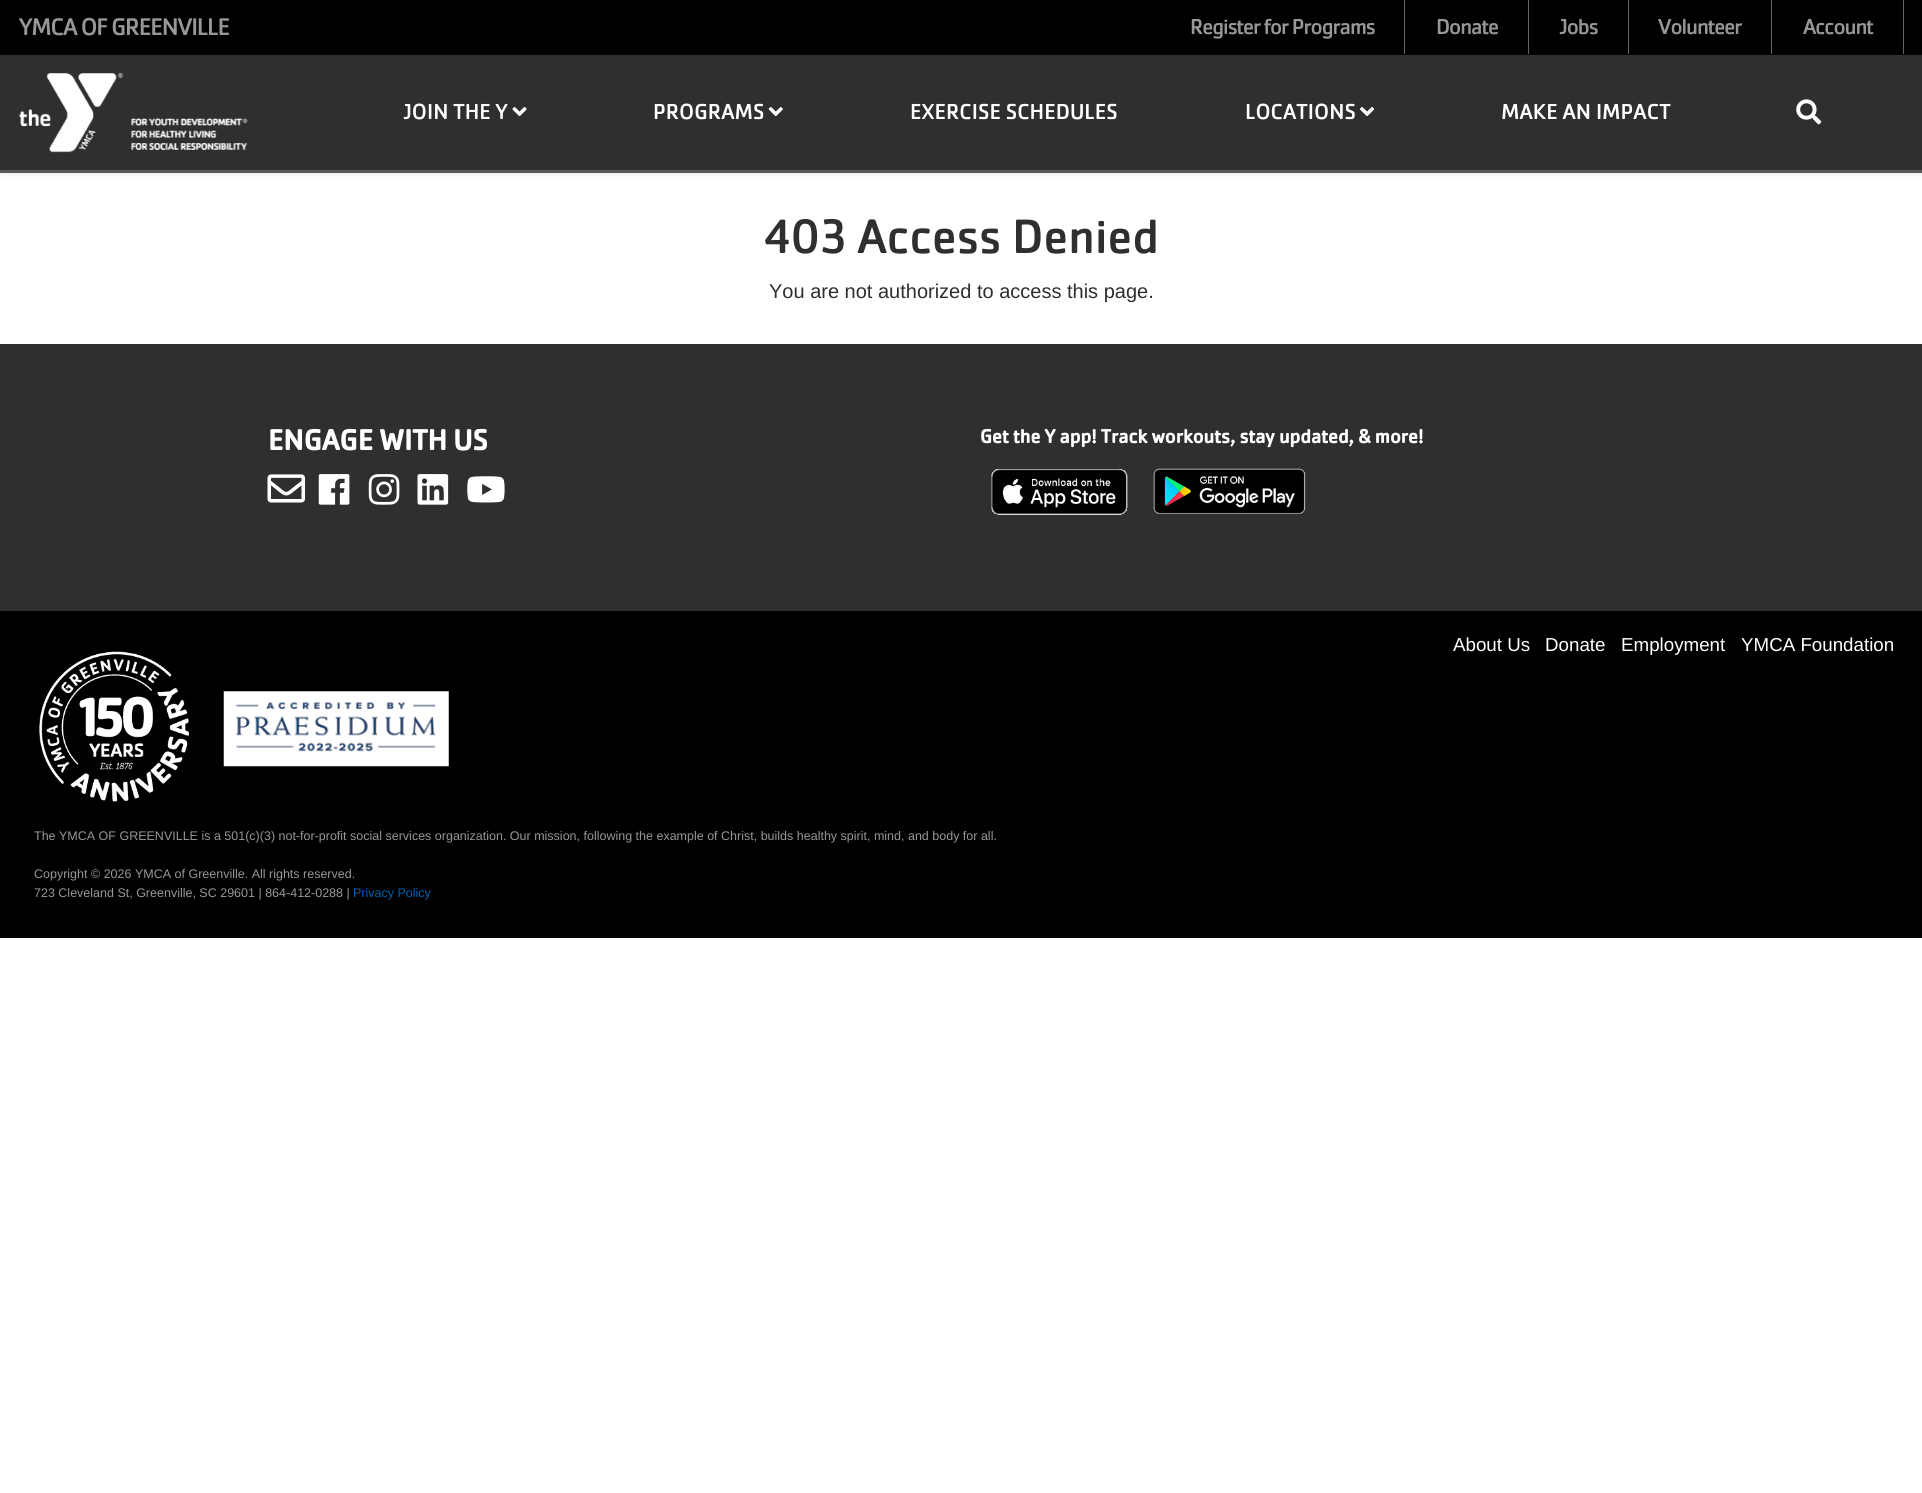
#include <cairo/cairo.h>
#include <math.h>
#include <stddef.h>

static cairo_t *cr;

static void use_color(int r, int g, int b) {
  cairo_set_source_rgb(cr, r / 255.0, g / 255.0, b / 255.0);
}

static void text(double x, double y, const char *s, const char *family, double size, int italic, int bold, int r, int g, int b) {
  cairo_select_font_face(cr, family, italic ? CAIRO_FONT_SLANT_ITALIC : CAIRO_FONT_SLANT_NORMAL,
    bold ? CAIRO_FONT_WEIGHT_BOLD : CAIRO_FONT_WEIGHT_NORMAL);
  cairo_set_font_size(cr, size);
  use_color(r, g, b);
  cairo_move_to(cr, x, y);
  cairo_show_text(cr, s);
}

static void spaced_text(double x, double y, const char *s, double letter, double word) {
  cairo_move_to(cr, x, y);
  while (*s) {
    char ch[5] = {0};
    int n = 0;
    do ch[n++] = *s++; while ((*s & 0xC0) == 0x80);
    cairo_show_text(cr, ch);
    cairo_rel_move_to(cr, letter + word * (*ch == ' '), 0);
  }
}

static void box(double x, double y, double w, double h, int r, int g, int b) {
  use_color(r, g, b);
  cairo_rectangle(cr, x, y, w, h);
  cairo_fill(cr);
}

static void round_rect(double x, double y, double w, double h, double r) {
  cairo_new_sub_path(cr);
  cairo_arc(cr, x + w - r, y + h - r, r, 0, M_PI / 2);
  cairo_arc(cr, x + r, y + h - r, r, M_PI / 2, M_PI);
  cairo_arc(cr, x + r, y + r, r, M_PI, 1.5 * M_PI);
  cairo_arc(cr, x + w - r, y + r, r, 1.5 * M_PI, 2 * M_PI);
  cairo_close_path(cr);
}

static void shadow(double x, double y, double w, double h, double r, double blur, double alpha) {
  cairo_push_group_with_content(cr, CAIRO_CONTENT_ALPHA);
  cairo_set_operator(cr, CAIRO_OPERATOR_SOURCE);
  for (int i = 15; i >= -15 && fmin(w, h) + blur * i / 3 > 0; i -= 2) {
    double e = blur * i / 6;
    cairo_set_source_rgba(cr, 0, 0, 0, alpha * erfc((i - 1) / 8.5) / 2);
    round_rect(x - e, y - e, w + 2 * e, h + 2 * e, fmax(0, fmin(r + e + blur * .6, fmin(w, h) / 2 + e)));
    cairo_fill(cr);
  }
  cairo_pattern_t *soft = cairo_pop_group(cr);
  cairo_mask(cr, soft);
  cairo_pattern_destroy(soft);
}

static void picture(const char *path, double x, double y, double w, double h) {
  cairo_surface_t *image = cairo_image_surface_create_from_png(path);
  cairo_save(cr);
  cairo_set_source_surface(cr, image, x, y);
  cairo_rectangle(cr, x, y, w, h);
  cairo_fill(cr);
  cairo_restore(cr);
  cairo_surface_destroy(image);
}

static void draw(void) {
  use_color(255, 255, 255);
  cairo_paint(cr);
  box(0, 55, 1922, 115, 47, 47, 47);
  cairo_save(cr);
  cairo_rectangle(cr, 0, 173, 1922, 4);
  cairo_clip(cr);
  use_color(0, 0, 0);
  shadow(1, 1, 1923, 173, 0, 3, 0.1);
  cairo_restore(cr);
  box(0, 170, 1922, 3, 88, 88, 88);
  box(0, 0, 1922, 55, 0, 0, 0);
  box(1903, 0, 1, 54, 99, 100, 102);
  box(1404, 0, 1, 54, 99, 100, 102);
  box(1528, 0, 1, 54, 99, 100, 102);
  box(1628, 0, 1, 54, 99, 100, 102);
  box(1771, 0, 1, 54, 99, 100, 102);
  picture("img_01.png", 19, 73, 229, 80);
  picture("img_02.png", 512, 107, 15, 10);
  picture("img_03.png", 768, 107, 15, 10);
  picture("img_04.png", 1360, 107, 14, 9);
  picture("img_05.png", 1796, 99, 26, 26);
  box(0, 344, 1922, 267, 47, 47, 47);
  picture("img_06.png", 267, 474, 38, 29);
  picture("img_07.png", 318, 474, 32, 31);
  picture("img_08.png", 368, 474, 32, 31);
  picture("img_09.png", 417, 474, 32, 31);
  picture("img_10.png", 467, 476, 38, 27);
  picture("img_11.png", 991, 469, 137, 46);
  picture("img_12.png", 1153, 468, 153, 46);
  box(0, 611, 1922, 327, 0, 0, 0);
  picture("img_13.png", 39, 651, 150, 151);
  picture("img_14.png", 223, 691, 226, 76);
  cairo_select_font_face(cr, "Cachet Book", CAIRO_FONT_SLANT_NORMAL, CAIRO_FONT_WEIGHT_NORMAL);
  cairo_set_font_size(cr, 25);
  use_color(151, 151, 151);
  spaced_text(19, 35, "YMCA OF GREENVILLE", -1.25, 0);
  cairo_set_font_size(cr, 22.5);
  spaced_text(1190, 34, "Register for Programs", -1.1, 0);
  spaced_text(1436, 34, "Donate", -1.1, 0);
  spaced_text(1559, 34, "Jobs", -1.1, 0);
  spaced_text(1658, 34, "Volunteer", -1.1, 0);
  spaced_text(1803, 34, "Account", -1.1, 0);
  text(403, 119, "JOIN THE Y", "Cachet Book", 22.5, 0, 0, 255, 255, 255);
  text(653, 119, "PROGRAMS", "Cachet Book", 22.5, 0, 0, 255, 255, 255);
  text(910, 119, "EXERCISE SCHEDULES", "Cachet Book", 22.5, 0, 0, 255, 255, 255);
  text(1245, 119, "LOCATIONS", "Cachet Book", 22.5, 0, 0, 255, 255, 255);
  text(1501, 119, "MAKE AN IMPACT", "Cachet Book", 22.5, 0, 0, 255, 255, 255);
  text(764, 253, "403 Access Denied", "Cachet Book", 50, 0, 0, 47, 47, 47);
  text(769, 298, "You are not authorized to access this page.", "Liberation Sans", 20, 0, 0, 47, 47, 47);
  text(268, 450, "ENGAGE WITH US", "Cachet Book", 30, 0, 1, 255, 255, 255);
  text(980, 443, "Get the Y app! Track workouts, stay updated, & more!", "Cachet Book", 20, 0, 1, 255, 255, 255);
  text(1453, 651, "About Us", "Liberation Sans", 18.75, 0, 0, 255, 255, 255);
  text(1545, 651, "Donate", "Liberation Sans", 18.75, 0, 0, 255, 255, 255);
  text(1621, 651, "Employment", "Liberation Sans", 18.75, 0, 0, 255, 255, 255);
  text(1741, 651, "YMCA Foundation", "Liberation Sans", 18.75, 0, 0, 255, 255, 255);
  text(34, 840, "The YMCA OF GREENVILLE is a 501(c)(3) not-for-profit social services organization. Our mission, following the example of Christ, builds healthy spirit, mind, and body for all.", "Liberation Sans", 12.5, 0, 0, 151, 151, 151);
  text(34, 878, "Copyright © 2026 YMCA of Greenville. All rights reserved.", "Liberation Sans", 12.5, 0, 0, 151, 151, 151);
  text(34, 897, "723 Cleveland St, Greenville, SC 29601 | 864-412-0288 |", "Liberation Sans", 12.5, 0, 0, 151, 151, 151);
  text(353, 897, "Privacy Policy", "Liberation Sans", 12.5, 0, 0, 0, 96, 175);
}

int main(void) {
  cairo_surface_t *surface = cairo_image_surface_create(CAIRO_FORMAT_RGB24, 1922, 1493);
  cr = cairo_create(surface);
  cairo_font_options_t *options = cairo_font_options_create();
  cairo_font_options_set_hint_metrics(options, CAIRO_HINT_METRICS_OFF);
  cairo_font_options_set_hint_style(options, CAIRO_HINT_STYLE_NONE);
  cairo_set_font_options(cr, options);
  cairo_set_miter_limit(cr, 4);
  draw();
  cairo_surface_write_to_png(surface, "out.png");
  cairo_font_options_destroy(options);
  cairo_destroy(cr);
  cairo_surface_destroy(surface);
  return 0;
}
